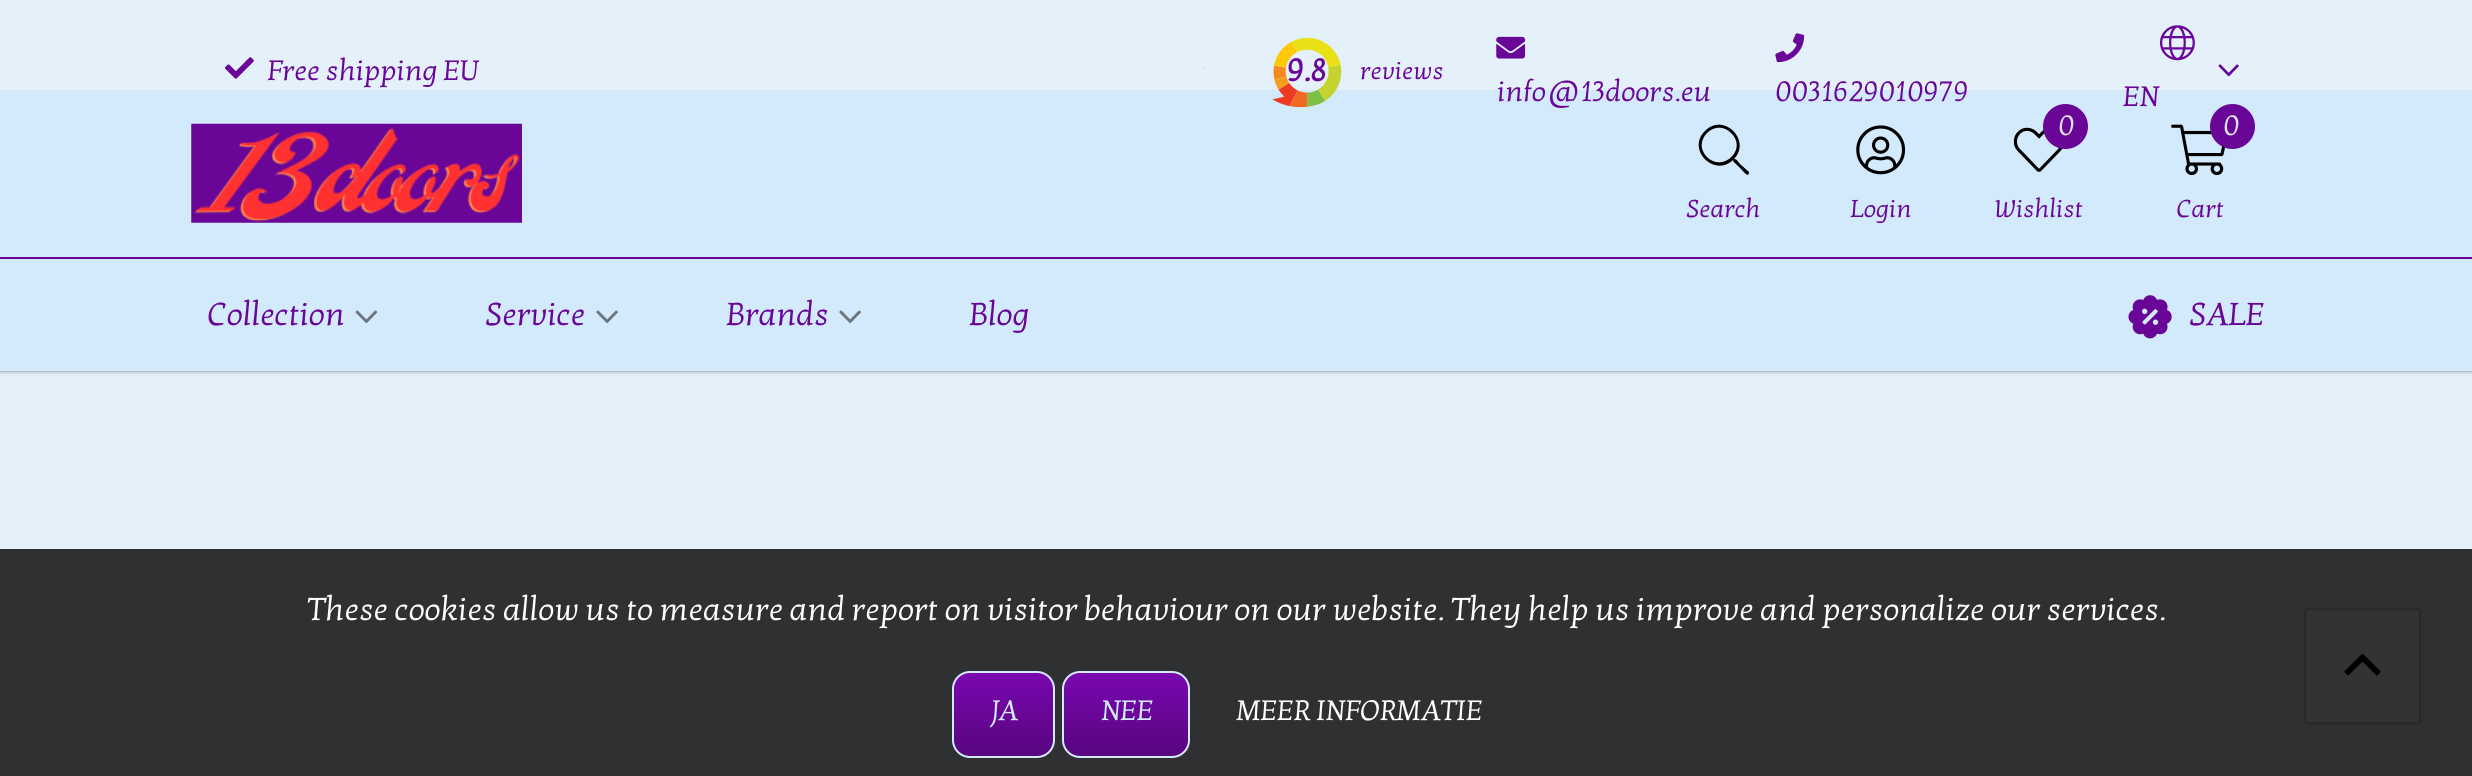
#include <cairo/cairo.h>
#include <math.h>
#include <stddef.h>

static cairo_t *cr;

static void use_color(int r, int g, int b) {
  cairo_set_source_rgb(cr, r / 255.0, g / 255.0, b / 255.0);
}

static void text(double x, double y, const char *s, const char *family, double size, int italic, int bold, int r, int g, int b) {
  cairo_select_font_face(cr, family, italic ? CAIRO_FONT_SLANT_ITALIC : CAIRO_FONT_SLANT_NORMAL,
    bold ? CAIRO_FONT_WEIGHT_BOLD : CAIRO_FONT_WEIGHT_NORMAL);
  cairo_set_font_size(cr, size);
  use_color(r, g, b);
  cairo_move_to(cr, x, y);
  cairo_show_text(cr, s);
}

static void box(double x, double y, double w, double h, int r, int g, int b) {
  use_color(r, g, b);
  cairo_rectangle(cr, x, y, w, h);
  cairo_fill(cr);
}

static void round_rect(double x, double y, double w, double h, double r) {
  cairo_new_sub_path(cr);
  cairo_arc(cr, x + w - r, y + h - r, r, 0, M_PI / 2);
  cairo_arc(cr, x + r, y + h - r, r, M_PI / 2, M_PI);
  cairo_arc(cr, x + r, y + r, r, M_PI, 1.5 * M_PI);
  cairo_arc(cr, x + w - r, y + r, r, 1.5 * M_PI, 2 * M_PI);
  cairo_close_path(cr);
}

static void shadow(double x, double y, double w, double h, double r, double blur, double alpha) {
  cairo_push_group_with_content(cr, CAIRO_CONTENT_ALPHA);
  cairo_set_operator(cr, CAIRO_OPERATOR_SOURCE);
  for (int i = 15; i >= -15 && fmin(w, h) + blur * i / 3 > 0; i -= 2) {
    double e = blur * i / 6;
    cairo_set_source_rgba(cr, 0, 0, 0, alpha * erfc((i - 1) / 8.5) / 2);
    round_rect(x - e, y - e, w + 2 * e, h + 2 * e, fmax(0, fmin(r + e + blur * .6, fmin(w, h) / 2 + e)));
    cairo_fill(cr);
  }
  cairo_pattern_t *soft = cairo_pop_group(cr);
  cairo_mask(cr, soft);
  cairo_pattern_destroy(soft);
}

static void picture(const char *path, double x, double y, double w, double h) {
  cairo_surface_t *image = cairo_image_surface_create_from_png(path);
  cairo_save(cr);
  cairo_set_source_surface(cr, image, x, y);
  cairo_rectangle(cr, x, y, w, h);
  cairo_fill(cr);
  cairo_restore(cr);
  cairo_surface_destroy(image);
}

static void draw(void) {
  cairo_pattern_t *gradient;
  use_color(228, 240, 250);
  cairo_paint(cr);
  box(0, 549, 2472, 227, 46, 48, 50);
  use_color(0, 0, 0);
  shadow(0, 0, 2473, 371, 0, 2, 0.5);
  box(0, 90, 2472, 281, 211, 234, 252);
  box(0, 0, 2472, 90, 228, 240, 250);
  picture("img_01.png", 225, 57, 29, 22);
  picture("img_02.png", 1203, 67, 1, 2);
  picture("img_03.png", 1272, 37, 70, 71);
  picture("img_04.png", 1496, 36, 30, 23);
  picture("img_05.png", 1775, 33, 30, 30);
  picture("img_06.png", 2218, 64, 21, 13);
  picture("img_07.png", 2160, 25, 35, 36);
  picture("img_08.png", 191, 123, 331, 100);
  use_color(0, 0, 0);
  cairo_new_path(cr);
  cairo_move_to(cr, 1749, 172);
  cairo_line_to(cr, 1749, 173);
  cairo_curve_to(cr, 1748, 178, 1743, 171, 1742, 170);
  cairo_line_to(cr, 1736, 164);
  cairo_curve_to(cr, 1734, 162, 1733, 162, 1733, 160);
  cairo_curve_to(cr, 1714, 178, 1686, 149, 1705, 131);
  cairo_curve_to(cr, 1723, 112, 1752, 140, 1734, 159);
  cairo_curve_to(cr, 1737, 159, 1738, 162, 1740, 164);
  cairo_close_path(cr);
  cairo_move_to(cr, 1707, 157);
  cairo_curve_to(cr, 1723, 173, 1748, 149, 1731, 133);
  cairo_curve_to(cr, 1715, 117, 1691, 141, 1707, 157);
  cairo_close_path(cr);
  cairo_fill(cr);
  picture("img_09.png", 1856, 125, 50, 50);
  picture("img_10.png", 2013, 127, 50, 45);
  use_color(105, 6, 151);
  cairo_arc(cr, 2065.5, 126.5, 22.5, 0, 2 * M_PI);
  cairo_fill(cr);
  picture("img_11.png", 2171, 124, 55, 52);
  cairo_arc(cr, 2232.5, 126.5, 22.5, 0, 2 * M_PI);
  cairo_fill(cr);
  box(0, 257, 2472, 2, 105, 6, 151);
  picture("img_12.png", 355, 310, 23, 14);
  picture("img_13.png", 596, 310, 22, 14);
  picture("img_13.png", 839, 310, 22, 14);
  picture("img_14.png", 2128, 295, 44, 44);
  cairo_save(cr);
  round_rect(952, 671, 103, 87, 18);
  cairo_clip(cr);
  gradient = cairo_pattern_create_linear(1004, 673, 1004, 756);
  cairo_pattern_add_color_stop_rgba(gradient, 0, 0.478, 0.027, 0.69, 1);
  cairo_pattern_add_color_stop_rgba(gradient, 1, 0.345, 0.02, 0.494, 1);
  cairo_set_source(cr, gradient);
  cairo_pattern_destroy(gradient);
  cairo_rectangle(cr, 952, 673, 103, 83);
  cairo_fill(cr);
  cairo_restore(cr);
  round_rect(953, 672, 101, 85, 17);
  use_color(211, 234, 252);
  cairo_stroke(cr);
  cairo_save(cr);
  round_rect(1062, 671, 128, 87, 18);
  cairo_clip(cr);
  gradient = cairo_pattern_create_linear(1126, 673, 1126, 756);
  cairo_pattern_add_color_stop_rgba(gradient, 0, 0.478, 0.027, 0.69, 1);
  cairo_pattern_add_color_stop_rgba(gradient, 1, 0.345, 0.02, 0.494, 1);
  cairo_set_source(cr, gradient);
  cairo_pattern_destroy(gradient);
  cairo_rectangle(cr, 1062, 673, 128, 83);
  cairo_fill(cr);
  cairo_restore(cr);
  round_rect(1063, 672, 126, 85, 17);
  cairo_stroke(cr);
  use_color(0, 0, 0);
  shadow(2306, 610, 113, 112, 0, 2, 0.5);
  box(2306, 610, 113, 112, 51, 51, 51);
  picture("img_15.png", 2344, 653, 37, 23);
  text(267, 80, "Free shipping EU", "Kotta One", 28.75, 0, 0, 105, 6, 151);
  text(1287, 81, "9.8", "Kotta One", 32, 0, 1, 105, 6, 151);
  text(1360, 79, "reviews", "Kotta One", 25, 0, 0, 105, 6, 151);
  text(1497, 101, "info@13doors.eu", "Kotta One", 28.75, 0, 0, 105, 6, 151);
  text(1775, 101, "0031629010979", "Kotta One", 28.75, 0, 0, 105, 6, 151);
  text(2123, 106, "EN", "Kotta One", 28.75, 0, 0, 105, 6, 151);
  text(1686, 217, "Search", "Kotta One", 25, 0, 0, 105, 6, 151);
  text(1850, 217, "Login", "Kotta One", 25, 0, 0, 105, 6, 151);
  text(2058, 135, "0", "Kotta One", 28.75, 0, 0, 222, 226, 230);
  text(1994, 217, "Wishlist", "Kotta One", 25, 0, 0, 105, 6, 151);
  text(2223, 135, "0", "Kotta One", 28.75, 0, 0, 222, 226, 230);
  text(2177, 217, "Cart", "Kotta One", 25, 0, 0, 105, 6, 151);
  text(208, 325, "Collection", "Kotta One", 32.4, 0, 0, 105, 6, 151);
  text(485, 325, "Service", "Kotta One", 32.4, 0, 0, 105, 6, 151);
  text(726, 325, "Brands", "Kotta One", 32.4, 0, 0, 105, 6, 151);
  text(969, 325, "Blog", "Kotta One", 32.4, 0, 0, 105, 6, 151);
  text(2189, 325, "SALE", "Kotta One", 32.4, 0, 0, 105, 6, 151);
  text(307, 620, "These cookies allow us to measure and report on visitor behaviour on our website. They help us improve and personalize our services.", "Kotta One", 32.4, 0, 0, 255, 255, 255);
  text(990, 720, "JA", "Kotta One", 28.75, 0, 0, 211, 234, 252);
  text(1101, 720, "NEE", "Kotta One", 28.75, 0, 0, 211, 234, 252);
  text(1236, 720, "MEER INFORMATIE", "Kotta One", 28.75, 0, 0, 255, 255, 255);
}

int main(void) {
  cairo_surface_t *surface = cairo_image_surface_create(CAIRO_FORMAT_RGB24, 2472, 776);
  cr = cairo_create(surface);
  cairo_font_options_t *options = cairo_font_options_create();
  cairo_font_options_set_hint_metrics(options, CAIRO_HINT_METRICS_OFF);
  cairo_font_options_set_hint_style(options, CAIRO_HINT_STYLE_NONE);
  cairo_set_font_options(cr, options);
  cairo_set_miter_limit(cr, 4);
  draw();
  cairo_surface_write_to_png(surface, "out.png");
  cairo_font_options_destroy(options);
  cairo_destroy(cr);
  cairo_surface_destroy(surface);
  return 0;
}
